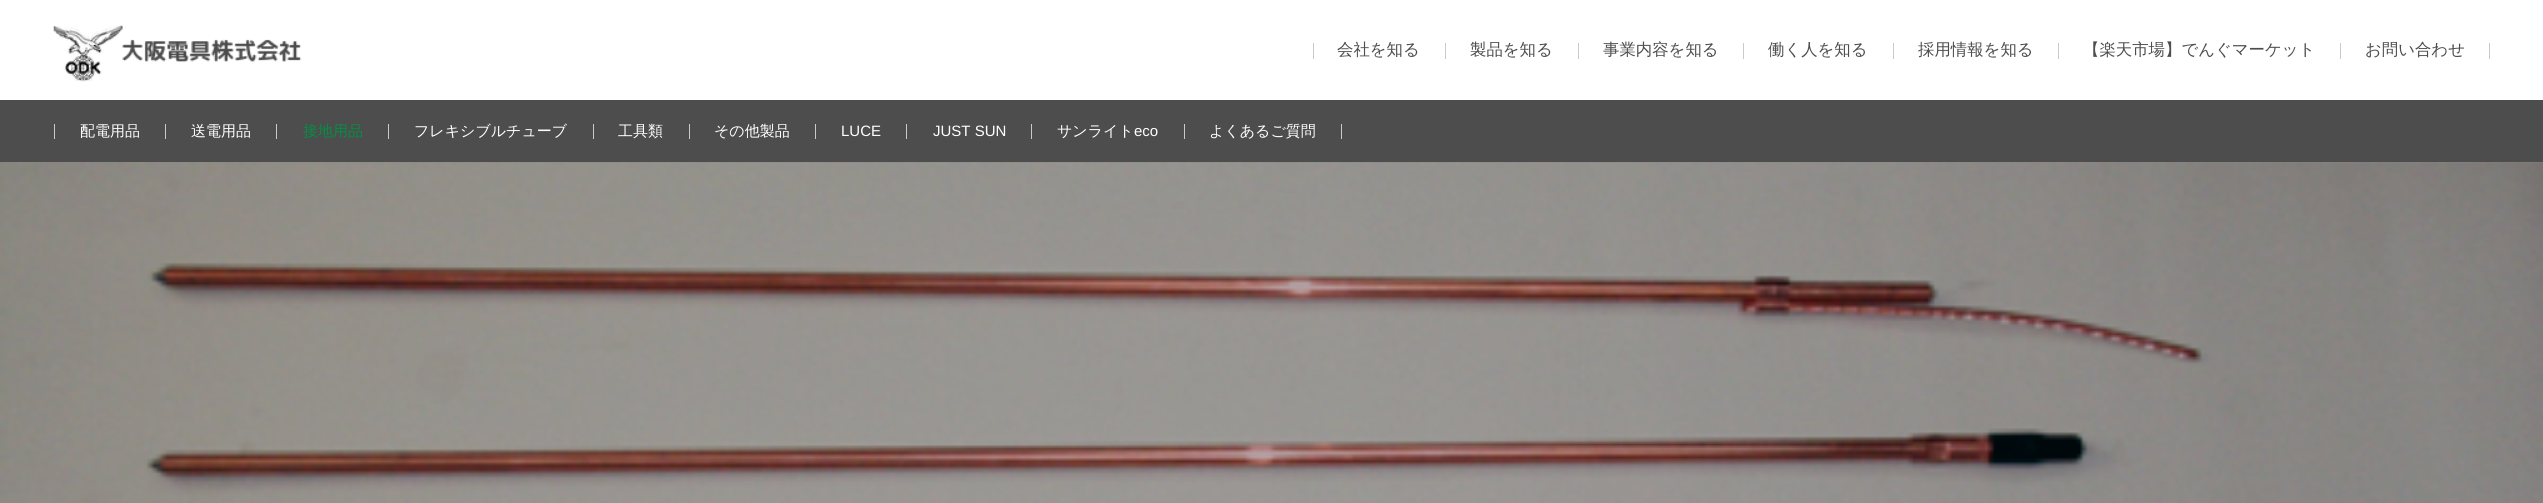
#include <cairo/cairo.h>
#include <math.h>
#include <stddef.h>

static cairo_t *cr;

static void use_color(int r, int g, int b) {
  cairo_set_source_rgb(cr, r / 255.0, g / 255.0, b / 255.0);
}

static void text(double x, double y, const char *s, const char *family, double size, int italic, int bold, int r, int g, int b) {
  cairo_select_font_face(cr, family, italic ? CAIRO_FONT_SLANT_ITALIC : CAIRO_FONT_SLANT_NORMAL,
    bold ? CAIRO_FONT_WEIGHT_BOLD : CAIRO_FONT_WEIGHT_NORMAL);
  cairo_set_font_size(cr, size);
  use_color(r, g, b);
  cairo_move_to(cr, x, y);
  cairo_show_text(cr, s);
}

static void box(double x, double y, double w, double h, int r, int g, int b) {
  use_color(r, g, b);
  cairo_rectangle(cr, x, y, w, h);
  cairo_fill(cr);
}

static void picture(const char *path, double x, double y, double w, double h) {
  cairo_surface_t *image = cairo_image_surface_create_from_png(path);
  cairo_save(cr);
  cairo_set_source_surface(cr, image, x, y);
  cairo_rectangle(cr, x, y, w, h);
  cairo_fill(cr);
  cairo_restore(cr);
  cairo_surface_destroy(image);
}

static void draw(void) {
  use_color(255, 255, 255);
  cairo_paint(cr);
  picture("img_01.png", 53, 25, 249, 57);
  box(1313, 43, 1, 16, 202, 202, 202);
  box(1445, 43, 1, 16, 202, 202, 202);
  box(1578, 43, 1, 16, 202, 202, 202);
  box(1743, 43, 1, 16, 202, 202, 202);
  box(1893, 43, 1, 16, 202, 202, 202);
  box(2058, 43, 1, 16, 202, 202, 202);
  box(2340, 43, 1, 16, 202, 202, 202);
  box(2489, 43, 1, 16, 202, 202, 202);
  box(0, 100, 2543, 63, 77, 77, 77);
  box(54, 124, 1, 15, 202, 202, 202);
  box(165, 124, 1, 15, 202, 202, 202);
  box(276, 124, 1, 15, 202, 202, 202);
  box(388, 124, 1, 15, 202, 202, 202);
  box(593, 124, 1, 15, 202, 202, 202);
  box(689, 124, 1, 15, 202, 202, 202);
  box(815, 124, 1, 15, 202, 202, 202);
  box(906, 124, 1, 15, 202, 202, 202);
  box(1031, 124, 1, 15, 202, 202, 202);
  box(1341, 124, 1, 15, 202, 202, 202);
  box(1184, 124, 1, 15, 202, 202, 202);
  picture("img_02.png", 0, 162, 2543, 341);
  text(1337, 55, "会社を知る", "WenQuanYi Zen Hei Medium", 16.4, 0, 0, 77, 77, 77);
  text(1470, 55, "製品を知る", "WenQuanYi Zen Hei Medium", 16.4, 0, 0, 77, 77, 77);
  text(1603, 55, "事業内容を知る", "WenQuanYi Zen Hei Medium", 16.4, 0, 0, 77, 77, 77);
  text(1768, 55, "働く人を知る", "WenQuanYi Zen Hei Medium", 16.4, 0, 0, 77, 77, 77);
  text(1918, 55, "採用情報を知る", "WenQuanYi Zen Hei Medium", 16.4, 0, 0, 77, 77, 77);
  text(2083, 55, "【楽天市場】でんぐマーケット", "WenQuanYi Zen Hei Medium", 16.4, 0, 0, 77, 77, 77);
  text(2365, 55, "お問い合わせ", "WenQuanYi Zen Hei Medium", 16.4, 0, 0, 77, 77, 77);
  text(80, 136, "配電用品", "WenQuanYi Zen Hei Medium", 15, 0, 0, 255, 255, 255);
  text(191, 136, "送電用品", "WenQuanYi Zen Hei Medium", 15, 0, 0, 255, 255, 255);
  text(303, 136, "接地用品", "WenQuanYi Zen Hei Medium", 15, 0, 0, 0, 144, 69);
  text(414, 136, "フレキシブルチューブ", "WenQuanYi Zen Hei Medium", 15, 0, 0, 255, 255, 255);
  text(618, 136, "工具類", "WenQuanYi Zen Hei Medium", 15, 0, 0, 255, 255, 255);
  text(714, 136, "その他製品", "WenQuanYi Zen Hei Medium", 15, 0, 0, 255, 255, 255);
  text(841, 136, "LUCE", "Liberation Sans", 15, 0, 0, 255, 255, 255);
  text(933, 136, "JUST SUN", "Liberation Sans", 15, 0, 0, 255, 255, 255);
  text(1057, 136, "サンライト", "WenQuanYi Zen Hei Medium", 15, 0, 0, 255, 255, 255);
  text(1134, 136, "eco", "Liberation Sans", 15, 0, 0, 255, 255, 255);
  text(1209, 136, "よくあるご質問", "WenQuanYi Zen Hei Medium", 15, 0, 0, 255, 255, 255);
}

int main(void) {
  cairo_surface_t *surface = cairo_image_surface_create(CAIRO_FORMAT_RGB24, 2543, 503);
  cr = cairo_create(surface);
  cairo_font_options_t *options = cairo_font_options_create();
  cairo_font_options_set_hint_metrics(options, CAIRO_HINT_METRICS_OFF);
  cairo_font_options_set_hint_style(options, CAIRO_HINT_STYLE_NONE);
  cairo_set_font_options(cr, options);
  cairo_set_miter_limit(cr, 4);
  draw();
  cairo_surface_write_to_png(surface, "out.png");
  cairo_font_options_destroy(options);
  cairo_destroy(cr);
  cairo_surface_destroy(surface);
  return 0;
}
